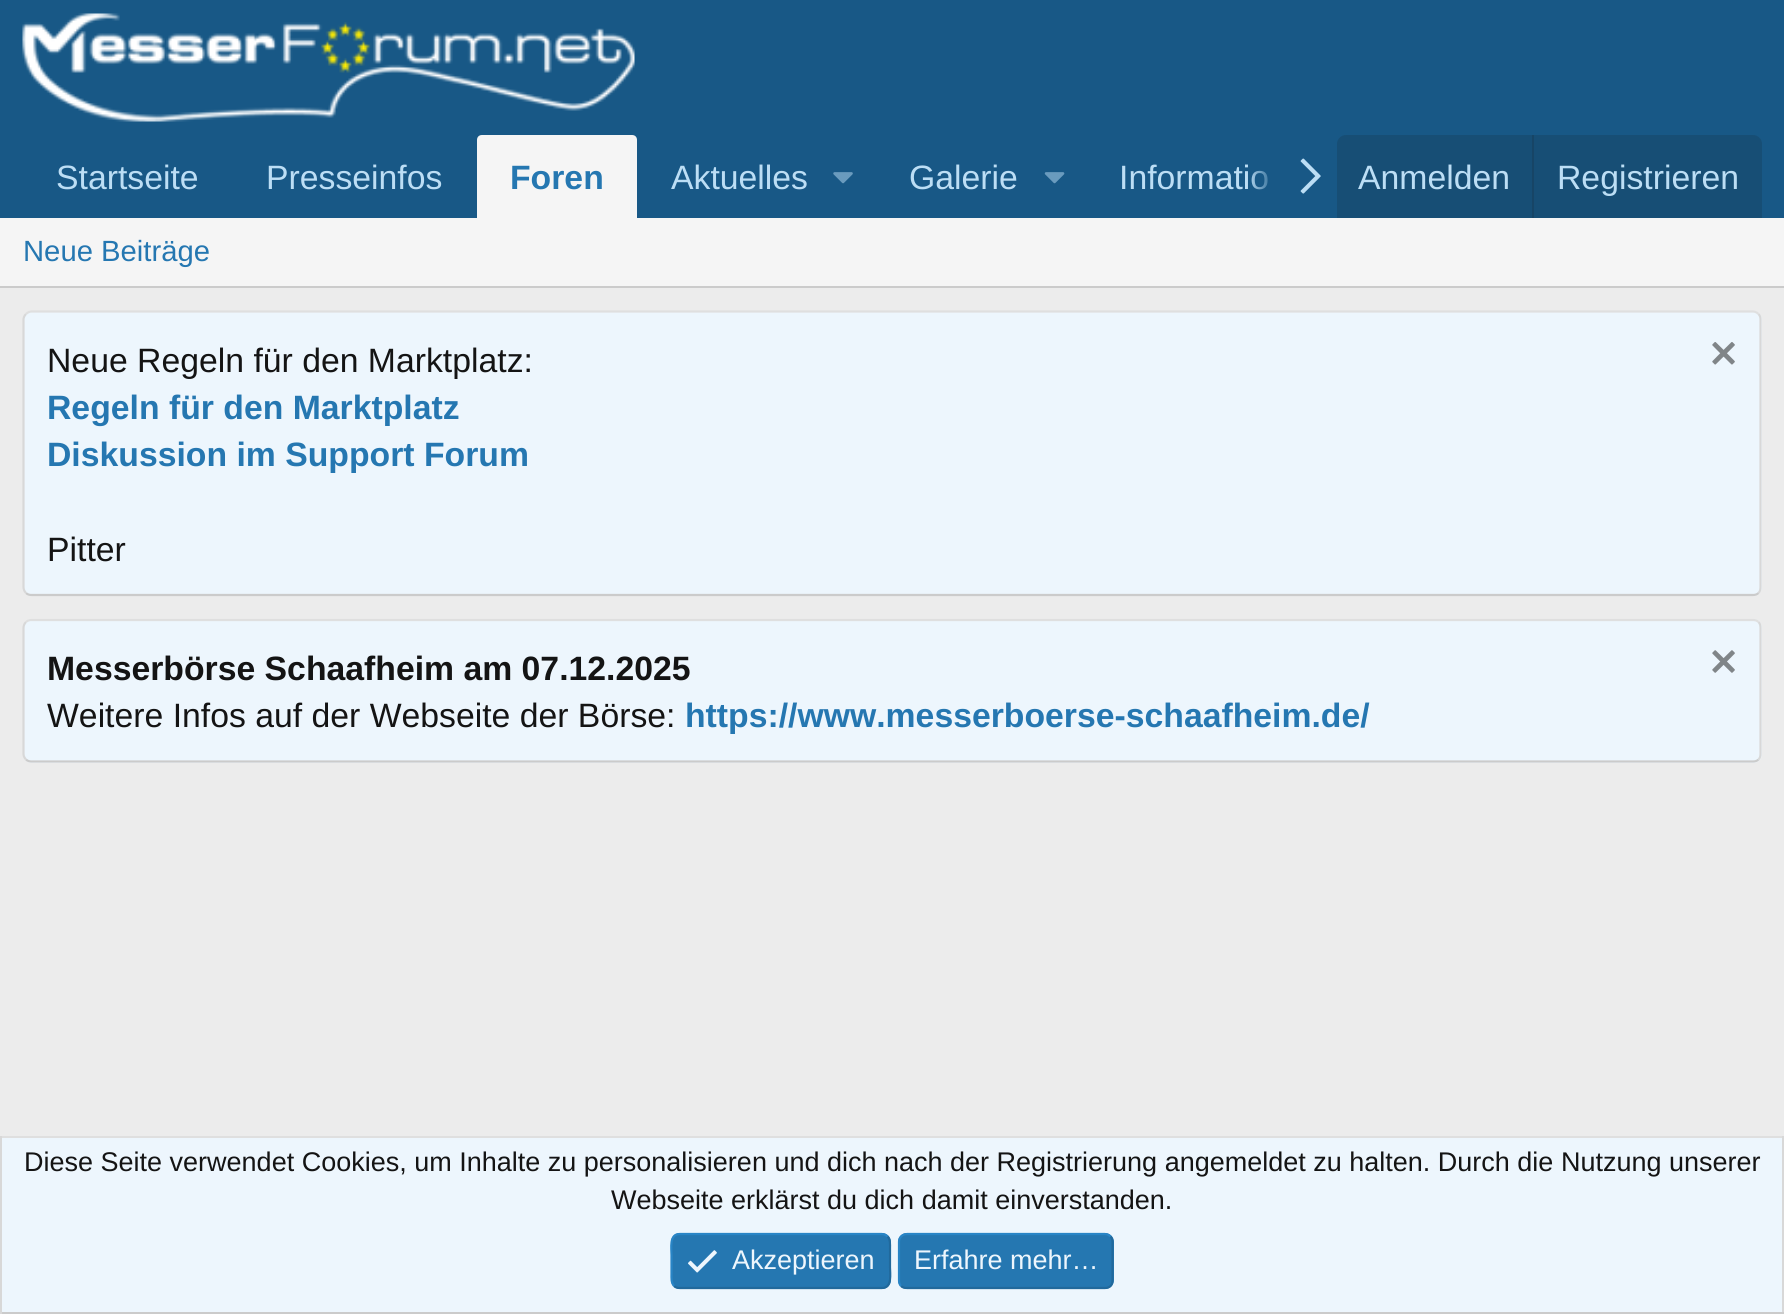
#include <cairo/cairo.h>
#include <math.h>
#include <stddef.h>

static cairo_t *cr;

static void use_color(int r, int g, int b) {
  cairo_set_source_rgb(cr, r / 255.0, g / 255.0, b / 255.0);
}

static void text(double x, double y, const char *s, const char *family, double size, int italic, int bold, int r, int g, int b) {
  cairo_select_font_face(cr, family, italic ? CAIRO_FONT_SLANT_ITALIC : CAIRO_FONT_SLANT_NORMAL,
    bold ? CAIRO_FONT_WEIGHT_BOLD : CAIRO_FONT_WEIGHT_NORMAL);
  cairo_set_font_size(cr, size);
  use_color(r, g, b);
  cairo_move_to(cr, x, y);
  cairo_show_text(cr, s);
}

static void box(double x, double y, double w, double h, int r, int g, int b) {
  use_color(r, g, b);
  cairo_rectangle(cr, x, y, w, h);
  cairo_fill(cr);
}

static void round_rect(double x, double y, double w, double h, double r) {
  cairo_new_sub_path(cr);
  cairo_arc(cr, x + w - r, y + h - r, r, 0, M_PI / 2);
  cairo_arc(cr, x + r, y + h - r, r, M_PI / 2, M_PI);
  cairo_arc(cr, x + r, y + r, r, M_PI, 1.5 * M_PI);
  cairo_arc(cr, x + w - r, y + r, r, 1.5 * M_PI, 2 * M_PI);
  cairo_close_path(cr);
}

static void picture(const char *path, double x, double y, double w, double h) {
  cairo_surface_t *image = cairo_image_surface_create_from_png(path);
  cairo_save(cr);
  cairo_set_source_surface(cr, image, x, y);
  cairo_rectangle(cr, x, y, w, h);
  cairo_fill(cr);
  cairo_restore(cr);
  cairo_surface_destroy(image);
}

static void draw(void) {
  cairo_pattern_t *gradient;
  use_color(236, 236, 236);
  cairo_paint(cr);
  box(0, 0, 1784, 218, 24, 88, 134);
  picture("img_01.png", 22, 13, 613, 109);
  use_color(245, 245, 245);
  cairo_new_path(cr);
  cairo_move_to(cr, 482, 135);
  cairo_line_to(cr, 632, 135);
  cairo_curve_to(cr, 635, 135, 637, 137, 637, 140);
  cairo_line_to(cr, 637, 218);
  cairo_line_to(cr, 477, 218);
  cairo_line_to(cr, 477, 140);
  cairo_curve_to(cr, 477, 137, 479, 135, 482, 135);
  cairo_close_path(cr);
  cairo_fill(cr);
  picture("img_02.png", 833, 172, 20, 12);
  picture("img_03.png", 1044, 172, 21, 12);
  picture("img_04.png", 1300, 158, 21, 36);
  use_color(23, 78, 117);
  cairo_new_path(cr);
  cairo_move_to(cr, 1346, 135);
  cairo_line_to(cr, 1753, 135);
  cairo_curve_to(cr, 1758, 135, 1762, 139, 1762, 144);
  cairo_line_to(cr, 1762, 218);
  cairo_line_to(cr, 1337, 218);
  cairo_line_to(cr, 1337, 144);
  cairo_curve_to(cr, 1337, 139, 1341, 135, 1346, 135);
  cairo_close_path(cr);
  cairo_fill(cr);
  box(1532, 135, 2, 83, 23, 69, 102);
  box(0, 218, 1784, 68, 245, 245, 245);
  box(0, 286, 1784, 2, 203, 203, 203);
  use_color(237, 246, 253);
  round_rect(23, 311, 1739, 285, 9);
  cairo_fill(cr);
  cairo_new_path(cr);
  cairo_move_to(cr, 26, 314);
  cairo_curve_to(cr, 27.5, 312.5, 29.5, 311.5, 31.5, 311.5);
  cairo_line_to(cr, 1753, 311.5);
  cairo_curve_to(cr, 1755, 311.5, 1757, 312.5, 1758.5, 314);
  use_color(223, 223, 223);
  cairo_set_line_width(cr, 2.2);
  cairo_stroke(cr);
  cairo_new_path(cr);
  cairo_move_to(cr, 1758.5, 314);
  cairo_curve_to(cr, 1760, 315.5, 1760.5, 317.5, 1760.5, 319.5);
  cairo_line_to(cr, 1760.5, 587);
  cairo_curve_to(cr, 1760.5, 589.5, 1760, 591.5, 1758.5, 593);
  use_color(216, 216, 216);
  cairo_stroke(cr);
  cairo_new_path(cr);
  cairo_move_to(cr, 1758.5, 593);
  cairo_curve_to(cr, 1757, 594.5, 1755, 595, 1753, 595);
  cairo_line_to(cr, 31.5, 595);
  cairo_curve_to(cr, 29.5, 595, 27.5, 594.5, 26, 593);
  use_color(203, 203, 203);
  cairo_stroke(cr);
  cairo_new_path(cr);
  cairo_move_to(cr, 26, 593);
  cairo_curve_to(cr, 24.5, 591.5, 23.5, 589.5, 23.5, 587);
  cairo_line_to(cr, 23.5, 319.5);
  cairo_curve_to(cr, 23.5, 317.5, 24.5, 315.5, 26, 314);
  use_color(216, 216, 216);
  cairo_stroke(cr);
  picture("img_05.png", 1712, 342, 23, 23);
  use_color(237, 246, 253);
  round_rect(23, 619, 1739, 144, 9);
  cairo_fill(cr);
  cairo_new_path(cr);
  cairo_move_to(cr, 26, 622);
  cairo_curve_to(cr, 27.5, 620.5, 29.5, 620, 31.5, 620);
  cairo_line_to(cr, 1753, 620);
  cairo_curve_to(cr, 1755, 620, 1757, 620.5, 1758.5, 622);
  use_color(223, 223, 223);
  cairo_stroke(cr);
  cairo_new_path(cr);
  cairo_move_to(cr, 1758.5, 622);
  cairo_curve_to(cr, 1760, 623.5, 1760.5, 625.5, 1760.5, 628);
  cairo_line_to(cr, 1760.5, 754);
  cairo_curve_to(cr, 1760.5, 756, 1760, 758, 1758.5, 759.5);
  use_color(216, 216, 216);
  cairo_stroke(cr);
  cairo_new_path(cr);
  cairo_move_to(cr, 1758.5, 759.5);
  cairo_curve_to(cr, 1757, 761, 1755, 761.5, 1753, 761.5);
  cairo_line_to(cr, 31.5, 761.5);
  cairo_curve_to(cr, 29.5, 761.5, 27.5, 761, 26, 759.5);
  use_color(203, 203, 203);
  cairo_stroke(cr);
  cairo_new_path(cr);
  cairo_move_to(cr, 26, 759.5);
  cairo_curve_to(cr, 24.5, 758, 23.5, 756, 23.5, 754);
  cairo_line_to(cr, 23.5, 628);
  cairo_curve_to(cr, 23.5, 625.5, 24.5, 623.5, 26, 622);
  use_color(216, 216, 216);
  cairo_stroke(cr);
  picture("img_06.png", 1712, 650, 23, 23);
  box(2, 1138, 1780, 174, 237, 246, 253);
  box(0, 1136, 1784, 2, 223, 223, 223);
  box(1782, 1136, 2, 178, 216, 216, 216);
  box(0, 1312, 1784, 2, 203, 203, 203);
  box(0, 1136, 2, 178, 216, 216, 216);
  use_color(37, 119, 177);
  round_rect(671, 1233, 220, 56, 9);
  cairo_fill(cr);
  cairo_new_path(cr);
  cairo_move_to(cr, 887.5, 1236.5);
  cairo_curve_to(cr, 890.5, 1239.5, 890, 1244.5, 890, 1248.5);
  cairo_line_to(cr, 890, 1267.5);
  cairo_curve_to(cr, 890, 1273.5, 892.5, 1288, 882, 1288);
  cairo_line_to(cr, 679.5, 1288);
  cairo_curve_to(cr, 677.5, 1288, 675.5, 1287.5, 674, 1286);
  use_color(33, 105, 156);
  cairo_stroke(cr);
  cairo_new_path(cr);
  cairo_move_to(cr, 674, 1286);
  cairo_curve_to(cr, 671, 1282.5, 671.5, 1278, 671.5, 1274);
  cairo_line_to(cr, 671.5, 1255);
  cairo_curve_to(cr, 671.5, 1248.5, 669, 1234, 679.5, 1234);
  cairo_line_to(cr, 882, 1234);
  cairo_curve_to(cr, 884, 1234, 886, 1235, 887.5, 1236.5);
  use_color(41, 133, 198);
  cairo_stroke(cr);
  picture("img_07.png", 688, 1250, 29, 23);
  use_color(37, 119, 177);
  round_rect(898, 1233, 216, 56, 9);
  cairo_fill(cr);
  cairo_new_path(cr);
  cairo_move_to(cr, 1110.5, 1236.5);
  cairo_curve_to(cr, 1112, 1238, 1112.5, 1240, 1112.5, 1242);
  cairo_line_to(cr, 1112.5, 1280);
  cairo_curve_to(cr, 1112.5, 1282.5, 1112, 1284.5, 1110.5, 1286);
  cairo_curve_to(cr, 1109, 1287.5, 1107, 1288, 1105, 1288);
  cairo_line_to(cr, 907, 1288);
  cairo_curve_to(cr, 904.5, 1288, 902.5, 1287.5, 901, 1286);
  use_color(33, 105, 156);
  cairo_stroke(cr);
  cairo_new_path(cr);
  cairo_move_to(cr, 901, 1286);
  cairo_curve_to(cr, 899.5, 1284.5, 899, 1282.5, 899, 1280);
  cairo_line_to(cr, 899, 1242);
  cairo_curve_to(cr, 899, 1240, 899.5, 1238, 901, 1236.5);
  cairo_curve_to(cr, 902.5, 1235, 904.5, 1234, 907, 1234);
  cairo_line_to(cr, 1105, 1234);
  cairo_curve_to(cr, 1107, 1234, 1109, 1235, 1110.5, 1236.5);
  use_color(41, 133, 198);
  cairo_stroke(cr);
  text(56, 189, "Startseite", "Liberation Sans", 33.75, 0, 0, 188, 222, 245);
  text(266, 189, "Presseinfos", "Liberation Sans", 33.75, 0, 0, 188, 222, 245);
  text(510, 189, "Foren", "Liberation Sans", 33.75, 0, 1, 37, 119, 177);
  text(671, 189, "Aktuelles", "Liberation Sans", 33.75, 0, 0, 188, 222, 245);
  text(909, 189, "Galerie", "Liberation Sans", 33.75, 0, 0, 188, 222, 245);
  text(1119, 189, "Informatio", "Liberation Sans", 33.75, 0, 0, 188, 222, 245);
  gradient = cairo_pattern_create_linear(1247, 177, 1337, 177);
  cairo_pattern_add_color_stop_rgba(gradient, 0, 0.094, 0.345, 0.525, 0);
  cairo_pattern_add_color_stop_rgba(gradient, 0.33, 0.094, 0.345, 0.525, 1);
  cairo_set_source(cr, gradient);
  cairo_pattern_destroy(gradient);
  cairo_rectangle(cr, 1252, 170, 16, 20);
  cairo_fill(cr);
  text(1358, 189, "Anmelden", "Liberation Sans", 33.75, 0, 0, 188, 222, 245);
  text(1557, 189, "Registrieren", "Liberation Sans", 33.75, 0, 0, 188, 222, 245);
  text(23, 261, "Neue Beiträge", "Liberation Sans", 29.25, 0, 0, 37, 119, 177);
  text(47, 372, "Neue Regeln für den Marktplatz:", "Liberation Sans", 33.75, 0, 0, 20, 20, 20);
  text(47, 419, "Regeln für den Marktplatz", "Liberation Sans", 33.75, 0, 1, 37, 119, 177);
  text(47, 466, "Diskussion im Support Forum", "Liberation Sans", 33.75, 0, 1, 37, 119, 177);
  text(47, 561, "Pitter", "Liberation Sans", 33.75, 0, 0, 20, 20, 20);
  text(47, 680, "Messerbörse Schaafheim am 07.12.2025", "Liberation Sans", 33.75, 0, 1, 20, 20, 20);
  text(47, 727, "Weitere Infos auf der Webseite der Börse:", "Liberation Sans", 33.75, 0, 0, 20, 20, 20);
  text(685, 727, "https://www.messerboerse-schaafheim.de/", "Liberation Sans", 33.75, 0, 1, 37, 119, 177);
  text(24, 1171, "Diese Seite verwendet Cookies, um Inhalte zu personalisieren und dich nach der Registrierung angemeldet zu halten. Durch die Nutzung unserer", "Liberation Sans", 27, 0, 0, 20, 20, 20);
  text(611, 1209, "Webseite erklärst du dich damit einverstanden.", "Liberation Sans", 27, 0, 0, 20, 20, 20);
  text(732, 1269, "Akzeptieren", "Liberation Sans", 27, 0, 0, 237, 246, 253);
  text(914, 1269, "Erfahre mehr…", "Liberation Sans", 27, 0, 0, 237, 246, 253);
}

int main(void) {
  cairo_surface_t *surface = cairo_image_surface_create(CAIRO_FORMAT_RGB24, 1784, 1314);
  cr = cairo_create(surface);
  cairo_font_options_t *options = cairo_font_options_create();
  cairo_font_options_set_hint_metrics(options, CAIRO_HINT_METRICS_OFF);
  cairo_font_options_set_hint_style(options, CAIRO_HINT_STYLE_NONE);
  cairo_set_font_options(cr, options);
  cairo_set_miter_limit(cr, 4);
  draw();
  cairo_surface_write_to_png(surface, "out.png");
  cairo_font_options_destroy(options);
  cairo_destroy(cr);
  cairo_surface_destroy(surface);
  return 0;
}
